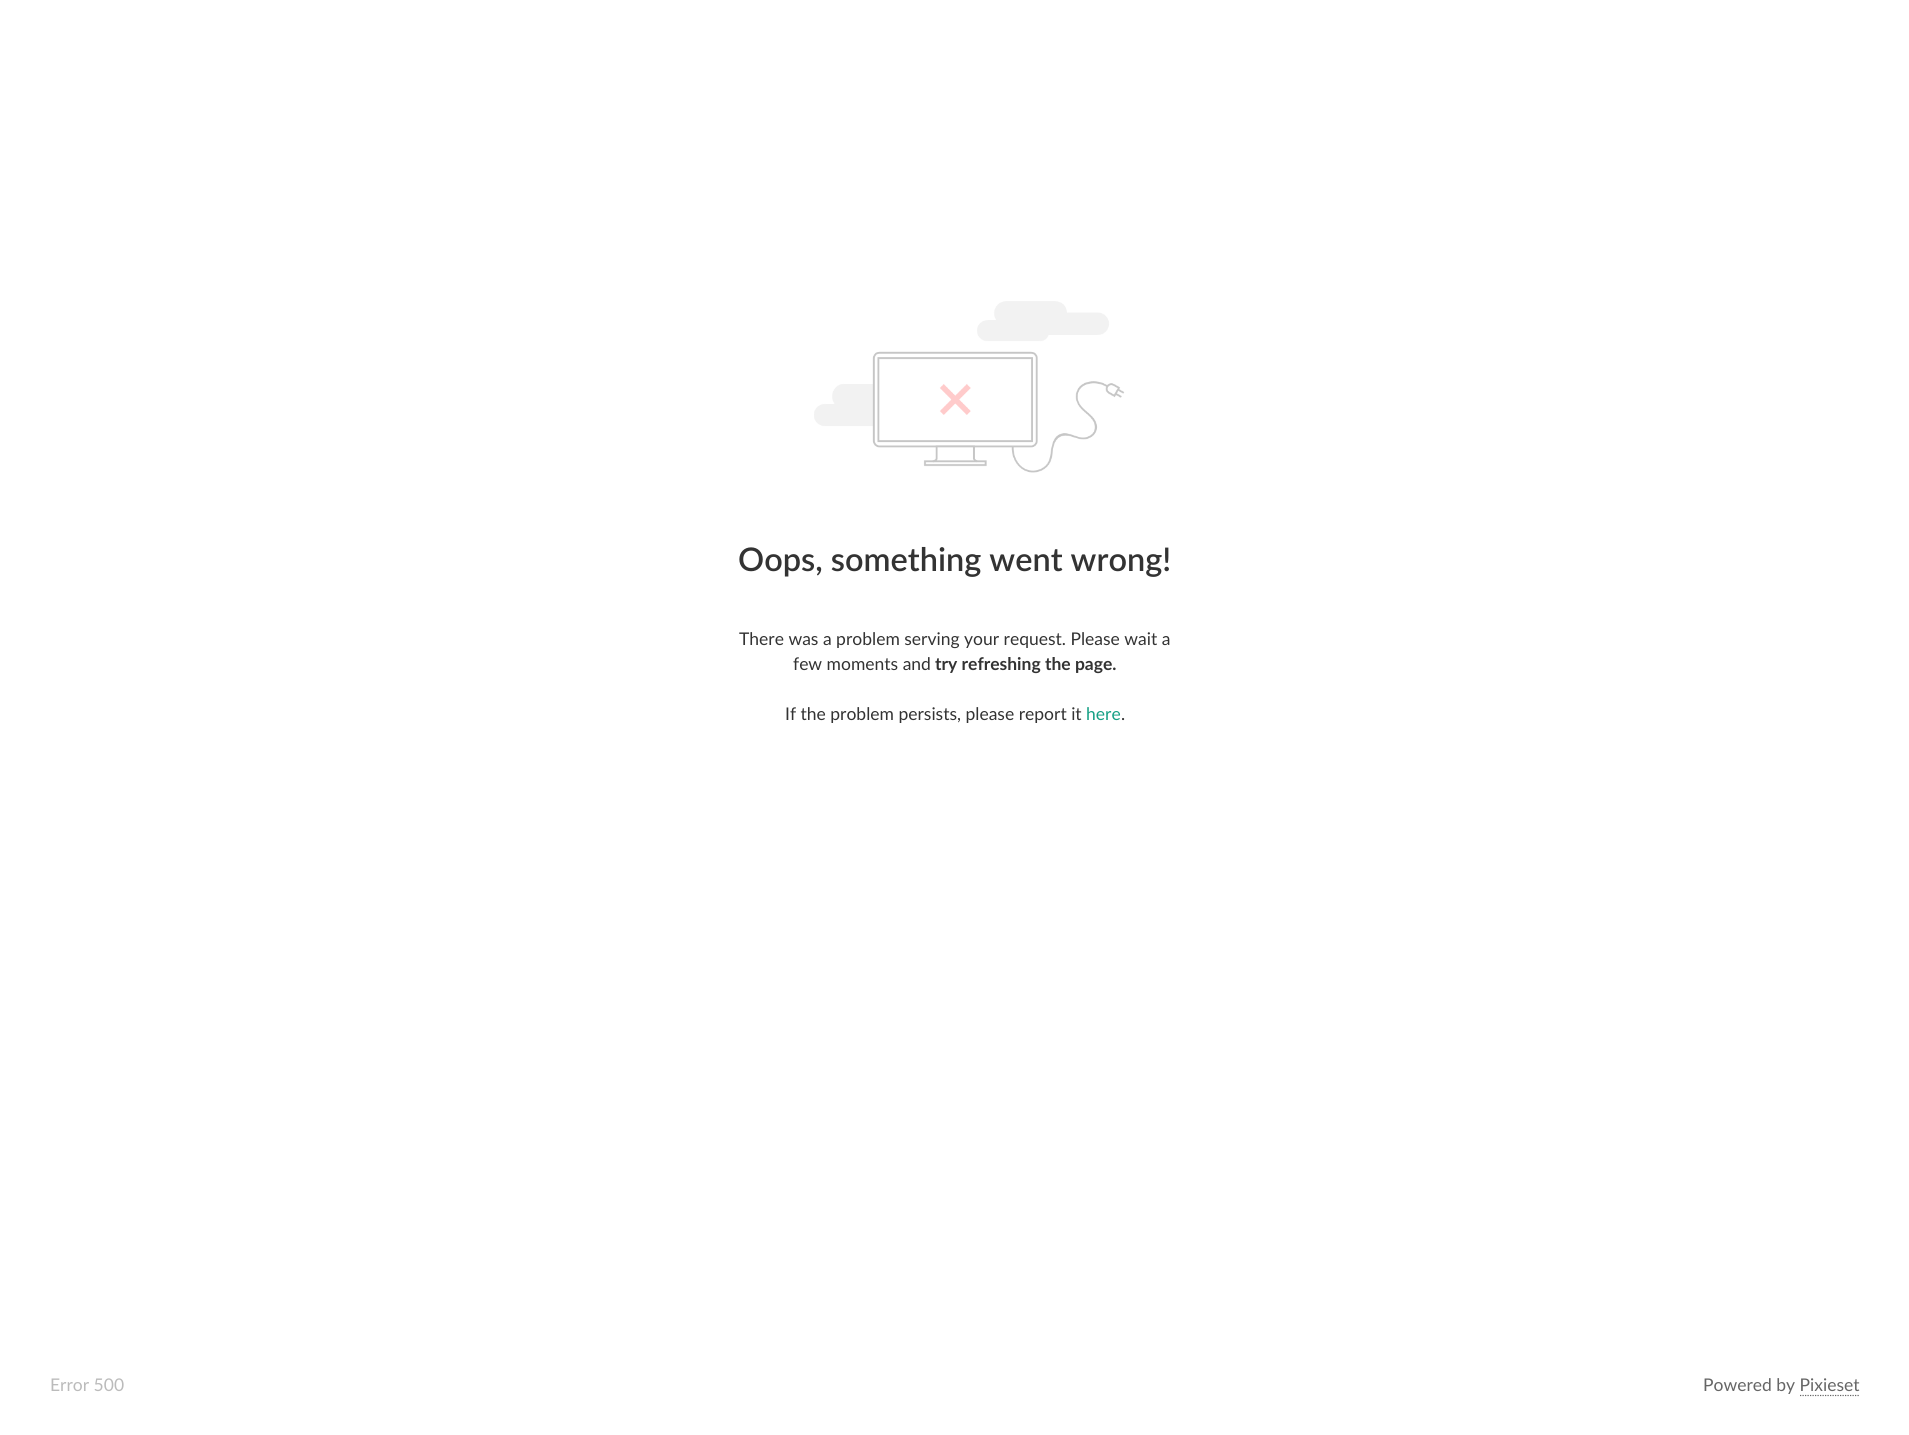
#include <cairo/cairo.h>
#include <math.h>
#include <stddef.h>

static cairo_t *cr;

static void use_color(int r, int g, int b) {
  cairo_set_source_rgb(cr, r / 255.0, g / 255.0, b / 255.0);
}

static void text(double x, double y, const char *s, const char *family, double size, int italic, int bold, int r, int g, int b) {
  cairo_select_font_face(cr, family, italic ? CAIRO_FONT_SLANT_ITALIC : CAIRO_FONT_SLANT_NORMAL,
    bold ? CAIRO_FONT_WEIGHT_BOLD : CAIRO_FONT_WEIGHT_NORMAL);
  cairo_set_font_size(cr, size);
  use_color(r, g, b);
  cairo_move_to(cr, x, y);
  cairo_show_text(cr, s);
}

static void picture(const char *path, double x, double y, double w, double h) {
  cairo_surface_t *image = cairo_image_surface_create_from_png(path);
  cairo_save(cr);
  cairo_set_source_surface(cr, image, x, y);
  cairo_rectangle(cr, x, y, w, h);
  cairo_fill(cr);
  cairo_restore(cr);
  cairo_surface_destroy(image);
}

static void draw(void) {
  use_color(255, 255, 255);
  cairo_paint(cr);
  picture("img_01.png", 814, 301, 311, 172);
  cairo_new_path(cr);
  cairo_move_to(cr, 1800, 1395.5);
  cairo_line_to(cr, 1860, 1395.5);
  use_color(102, 102, 102);
  cairo_set_line_width(cr, 1.2);
  cairo_set_dash(cr, (double[]){1.25, 1.25}, 2, 0);
  cairo_stroke(cr);
  text(738, 571, "Oops, something went wrong!", "Lato SemiBold", 32.5, 0, 0, 51, 51, 51);
  text(739, 645, "There was a problem serving your request. Please wait a", "Lato", 17.5, 0, 0, 51, 51, 51);
  text(793, 670, "few moments and", "Lato", 17.5, 0, 0, 51, 51, 51);
  text(935, 670, "try refreshing the page.", "Lato", 17.5, 0, 1, 51, 51, 51);
  text(785, 720, "If the problem persists, please report it", "Lato", 17.5, 0, 0, 51, 51, 51);
  text(1086, 720, "here", "Lato", 17.5, 0, 0, 22, 160, 133);
  text(1121, 720, ".", "Lato", 17.5, 0, 0, 51, 51, 51);
  text(50, 1391, "Error 500", "Lato", 17.5, 0, 0, 187, 187, 187);
  text(1703, 1391, "Powered by Pixieset", "Lato", 17.5, 0, 0, 102, 102, 102);
}

int main(void) {
  cairo_surface_t *surface = cairo_image_surface_create(CAIRO_FORMAT_RGB24, 1909, 1435);
  cr = cairo_create(surface);
  cairo_font_options_t *options = cairo_font_options_create();
  cairo_font_options_set_hint_metrics(options, CAIRO_HINT_METRICS_OFF);
  cairo_font_options_set_hint_style(options, CAIRO_HINT_STYLE_NONE);
  cairo_set_font_options(cr, options);
  cairo_set_miter_limit(cr, 4);
  draw();
  cairo_surface_write_to_png(surface, "out.png");
  cairo_font_options_destroy(options);
  cairo_destroy(cr);
  cairo_surface_destroy(surface);
  return 0;
}
